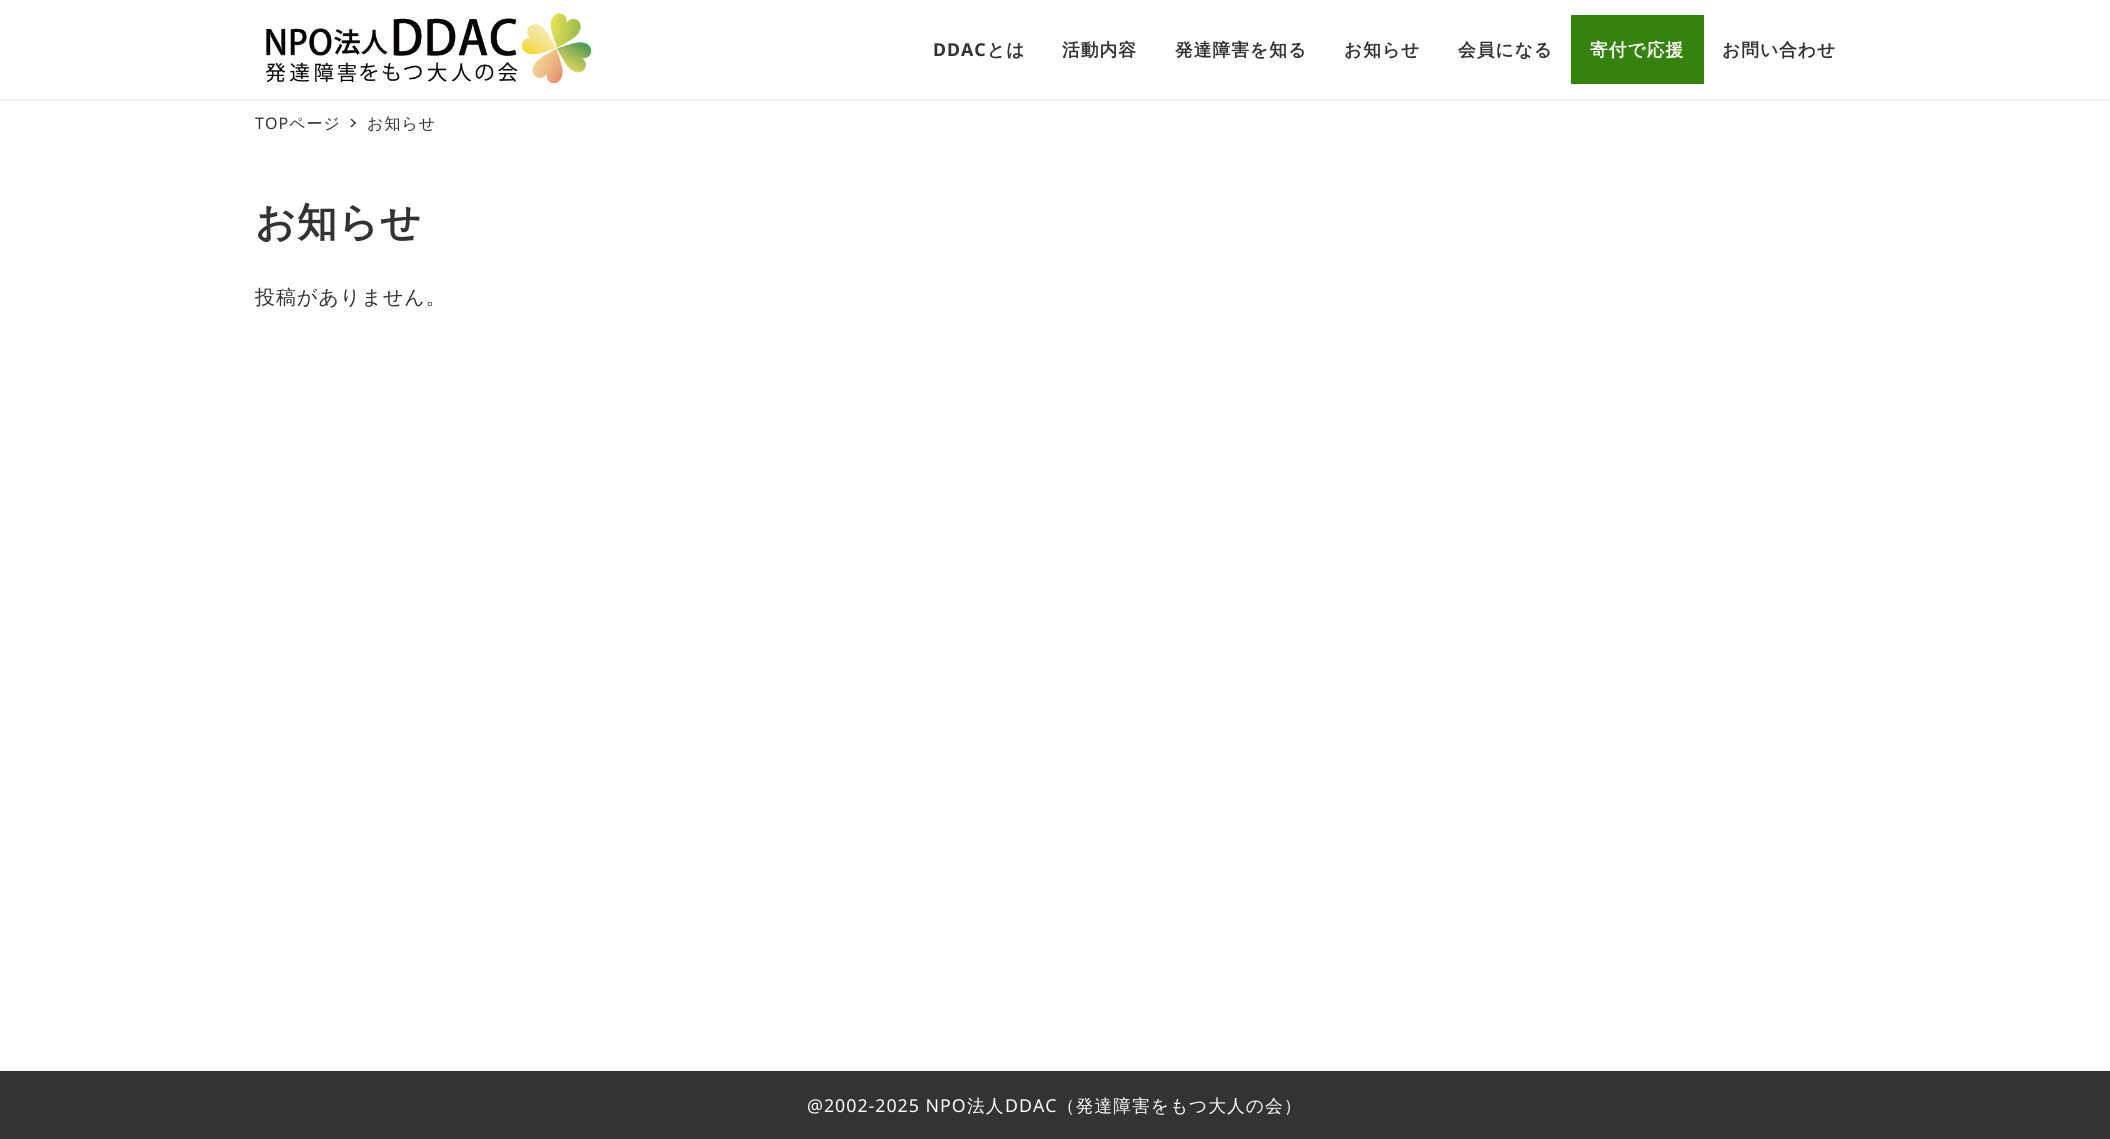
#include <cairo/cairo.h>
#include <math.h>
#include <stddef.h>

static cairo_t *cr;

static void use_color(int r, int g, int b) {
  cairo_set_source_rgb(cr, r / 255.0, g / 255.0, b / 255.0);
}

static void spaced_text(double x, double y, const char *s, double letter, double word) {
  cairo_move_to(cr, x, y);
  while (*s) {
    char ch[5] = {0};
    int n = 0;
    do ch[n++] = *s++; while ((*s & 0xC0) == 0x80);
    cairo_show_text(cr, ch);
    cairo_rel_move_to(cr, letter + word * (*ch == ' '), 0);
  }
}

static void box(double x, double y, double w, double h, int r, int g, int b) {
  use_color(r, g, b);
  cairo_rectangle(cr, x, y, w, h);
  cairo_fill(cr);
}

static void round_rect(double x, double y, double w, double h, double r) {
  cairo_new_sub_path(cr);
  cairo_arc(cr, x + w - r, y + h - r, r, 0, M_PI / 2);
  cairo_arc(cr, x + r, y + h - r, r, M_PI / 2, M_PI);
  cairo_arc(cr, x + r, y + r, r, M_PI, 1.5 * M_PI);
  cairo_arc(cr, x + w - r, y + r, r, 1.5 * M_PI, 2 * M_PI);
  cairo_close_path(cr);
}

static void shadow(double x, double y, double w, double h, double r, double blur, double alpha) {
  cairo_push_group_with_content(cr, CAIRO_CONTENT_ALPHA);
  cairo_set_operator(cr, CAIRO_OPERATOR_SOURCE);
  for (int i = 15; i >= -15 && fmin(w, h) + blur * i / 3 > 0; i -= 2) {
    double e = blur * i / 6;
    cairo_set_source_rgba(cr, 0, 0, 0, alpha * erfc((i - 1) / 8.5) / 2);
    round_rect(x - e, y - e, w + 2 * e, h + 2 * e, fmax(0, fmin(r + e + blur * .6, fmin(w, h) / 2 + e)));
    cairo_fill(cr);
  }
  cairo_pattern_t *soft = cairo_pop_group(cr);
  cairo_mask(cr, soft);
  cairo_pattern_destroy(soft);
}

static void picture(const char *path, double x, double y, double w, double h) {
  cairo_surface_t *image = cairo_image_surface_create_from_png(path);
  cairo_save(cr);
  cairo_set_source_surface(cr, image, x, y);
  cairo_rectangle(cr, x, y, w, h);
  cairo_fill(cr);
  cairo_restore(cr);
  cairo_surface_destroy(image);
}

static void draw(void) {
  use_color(255, 255, 255);
  cairo_paint(cr);
  use_color(0, 0, 0);
  shadow(-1, 0, 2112, 101, 0, 1, 0.05);
  box(0, 0, 2110, 99, 255, 255, 255);
  picture("img_01.png", 265, 13, 327, 71);
  box(1571, 15, 133, 69, 54, 130, 14);
  use_color(51, 51, 51);
  cairo_new_path(cr);
  cairo_move_to(cr, 351.5, 118.5);
  cairo_line_to(cr, 356, 123);
  cairo_line_to(cr, 355, 124);
  cairo_line_to(cr, 350.5, 119.5);
  cairo_close_path(cr);
  cairo_fill(cr);
  cairo_new_path(cr);
  cairo_move_to(cr, 355, 122);
  cairo_line_to(cr, 356, 123);
  cairo_line_to(cr, 351.5, 127.5);
  cairo_line_to(cr, 350.5, 126.5);
  cairo_close_path(cr);
  cairo_fill(cr);
  box(0, 1070, 2110, 1, 238, 238, 238);
  box(0, 1071, 2110, 68, 51, 51, 51);
  cairo_select_font_face(cr, "Noto Sans", CAIRO_FONT_SLANT_NORMAL, CAIRO_FONT_WEIGHT_BOLD);
  cairo_set_font_size(cr, 17.75);
  spaced_text(933, 56, "DDAC", 1, 0);
  cairo_select_font_face(cr, "WenQuanYi Zen Hei", CAIRO_FONT_SLANT_NORMAL, CAIRO_FONT_WEIGHT_BOLD);
  spaced_text(987, 56, "とは", 1, 0);
  spaced_text(1062, 56, "活動内容", 1, 0);
  spaced_text(1175, 56, "発達障害を知る", 1, 0);
  spaced_text(1344, 56, "お知らせ", 1, 0);
  spaced_text(1458, 56, "会員になる", 1, 0);
  use_color(255, 255, 255);
  spaced_text(1590, 56, "寄付で応援", 1, 0);
  use_color(51, 51, 51);
  spaced_text(1722, 56, "お問い合わせ", 1, 0);
  cairo_select_font_face(cr, "Noto Sans", CAIRO_FONT_SLANT_NORMAL, CAIRO_FONT_WEIGHT_NORMAL);
  cairo_set_font_size(cr, 16);
  spaced_text(255, 129, "TOP", 1, 0);
  cairo_select_font_face(cr, "WenQuanYi Zen Hei Medium", CAIRO_FONT_SLANT_NORMAL, CAIRO_FONT_WEIGHT_NORMAL);
  spaced_text(289, 129, "ページ", 1, 0);
  spaced_text(367, 129, "お知らせ", 1, 0);
  cairo_select_font_face(cr, "WenQuanYi Zen Hei", CAIRO_FONT_SLANT_NORMAL, CAIRO_FONT_WEIGHT_BOLD);
  cairo_set_font_size(cr, 40);
  spaced_text(255, 236, "お知らせ", 1, 0);
  cairo_select_font_face(cr, "WenQuanYi Zen Hei Medium", CAIRO_FONT_SLANT_NORMAL, CAIRO_FONT_WEIGHT_NORMAL);
  cairo_set_font_size(cr, 20);
  spaced_text(255, 304, "投稿がありません。", 1, 0);
  cairo_select_font_face(cr, "Noto Sans", CAIRO_FONT_SLANT_NORMAL, CAIRO_FONT_WEIGHT_NORMAL);
  cairo_set_font_size(cr, 17.75);
  use_color(255, 255, 255);
  spaced_text(807, 1112, "@2002-2025 NPO", 1, 0);
  cairo_select_font_face(cr, "WenQuanYi Zen Hei Medium", CAIRO_FONT_SLANT_NORMAL, CAIRO_FONT_WEIGHT_NORMAL);
  spaced_text(967, 1112, "法人", 1, 0);
  cairo_select_font_face(cr, "Noto Sans", CAIRO_FONT_SLANT_NORMAL, CAIRO_FONT_WEIGHT_NORMAL);
  spaced_text(1005, 1112, "DDAC", 1, 0);
  cairo_select_font_face(cr, "WenQuanYi Zen Hei Medium", CAIRO_FONT_SLANT_NORMAL, CAIRO_FONT_WEIGHT_NORMAL);
  spaced_text(1057, 1112, "（発達障害をもつ大人の会）", 1, 0);
}

int main(void) {
  cairo_surface_t *surface = cairo_image_surface_create(CAIRO_FORMAT_RGB24, 2110, 1139);
  cr = cairo_create(surface);
  cairo_font_options_t *options = cairo_font_options_create();
  cairo_font_options_set_hint_metrics(options, CAIRO_HINT_METRICS_OFF);
  cairo_font_options_set_hint_style(options, CAIRO_HINT_STYLE_NONE);
  cairo_set_font_options(cr, options);
  cairo_set_miter_limit(cr, 4);
  draw();
  cairo_surface_write_to_png(surface, "out.png");
  cairo_font_options_destroy(options);
  cairo_destroy(cr);
  cairo_surface_destroy(surface);
  return 0;
}
